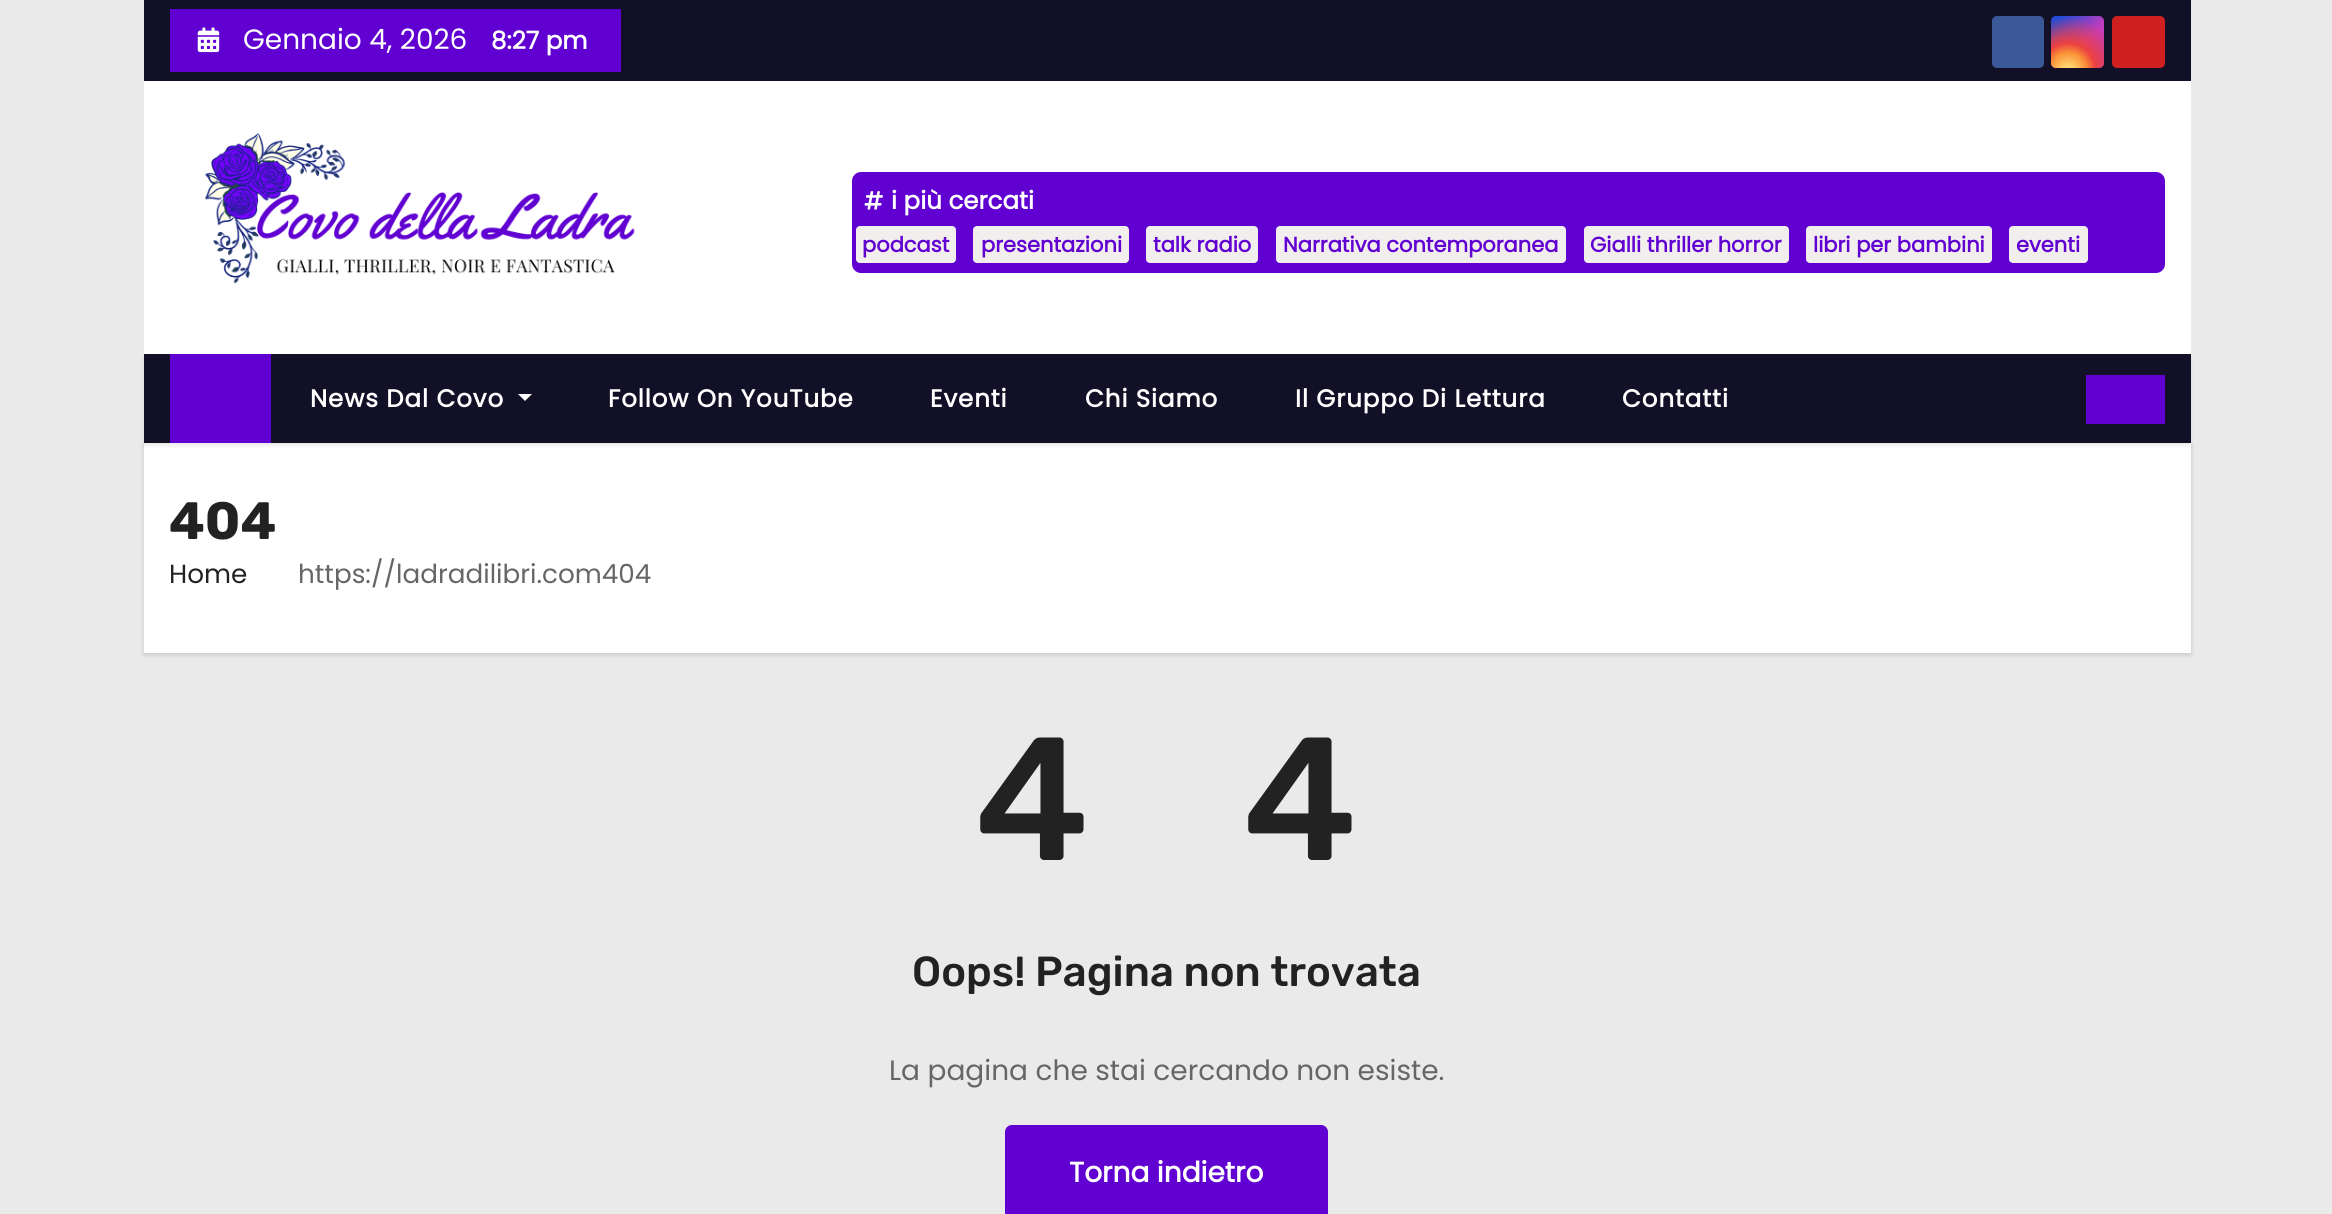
#include <cairo/cairo.h>
#include <math.h>
#include <stddef.h>

static cairo_t *cr;

static void use_color(int r, int g, int b) {
  cairo_set_source_rgb(cr, r / 255.0, g / 255.0, b / 255.0);
}

static void text(double x, double y, const char *s, const char *family, double size, int italic, int bold, int r, int g, int b) {
  cairo_select_font_face(cr, family, italic ? CAIRO_FONT_SLANT_ITALIC : CAIRO_FONT_SLANT_NORMAL,
    bold ? CAIRO_FONT_WEIGHT_BOLD : CAIRO_FONT_WEIGHT_NORMAL);
  cairo_set_font_size(cr, size);
  use_color(r, g, b);
  cairo_move_to(cr, x, y);
  cairo_show_text(cr, s);
}

static void spaced_text(double x, double y, const char *s, double letter, double word) {
  cairo_move_to(cr, x, y);
  while (*s) {
    char ch[5] = {0};
    int n = 0;
    do ch[n++] = *s++; while ((*s & 0xC0) == 0x80);
    cairo_show_text(cr, ch);
    cairo_rel_move_to(cr, letter + word * (*ch == ' '), 0);
  }
}

static void box(double x, double y, double w, double h, int r, int g, int b) {
  use_color(r, g, b);
  cairo_rectangle(cr, x, y, w, h);
  cairo_fill(cr);
}

static void round_rect(double x, double y, double w, double h, double r) {
  cairo_new_sub_path(cr);
  cairo_arc(cr, x + w - r, y + h - r, r, 0, M_PI / 2);
  cairo_arc(cr, x + r, y + h - r, r, M_PI / 2, M_PI);
  cairo_arc(cr, x + r, y + r, r, M_PI, 1.5 * M_PI);
  cairo_arc(cr, x + w - r, y + r, r, 1.5 * M_PI, 2 * M_PI);
  cairo_close_path(cr);
}

static void shadow(double x, double y, double w, double h, double r, double blur, double alpha) {
  cairo_push_group_with_content(cr, CAIRO_CONTENT_ALPHA);
  cairo_set_operator(cr, CAIRO_OPERATOR_SOURCE);
  for (int i = 15; i >= -15 && fmin(w, h) + blur * i / 3 > 0; i -= 2) {
    double e = blur * i / 6;
    cairo_set_source_rgba(cr, 0, 0, 0, alpha * erfc((i - 1) / 8.5) / 2);
    round_rect(x - e, y - e, w + 2 * e, h + 2 * e, fmax(0, fmin(r + e + blur * .6, fmin(w, h) / 2 + e)));
    cairo_fill(cr);
  }
  cairo_pattern_t *soft = cairo_pop_group(cr);
  cairo_mask(cr, soft);
  cairo_pattern_destroy(soft);
}

static void picture(const char *path, double x, double y, double w, double h) {
  cairo_surface_t *image = cairo_image_surface_create_from_png(path);
  cairo_save(cr);
  cairo_set_source_surface(cr, image, x, y);
  cairo_rectangle(cr, x, y, w, h);
  cairo_fill(cr);
  cairo_restore(cr);
  cairo_surface_destroy(image);
}

static void draw(void) {
  cairo_pattern_t *gradient;
  use_color(234, 234, 234);
  cairo_paint(cr);
  box(144, 0, 2047, 81, 18, 16, 38);
  box(170, 9, 451, 63, 96, 1, 210);
  picture("img_01.png", 197, 27, 23, 26);
  use_color(59, 89, 152);
  round_rect(1992, 16, 52, 52, 5);
  cairo_fill(cr);
  gradient = cairo_pattern_create_linear(2051, 16, 2104, 68);
  cairo_pattern_add_color_stop_rgba(gradient, 0.12, 0.137, 0.294, 0.843, 1);
  cairo_pattern_add_color_stop_rgba(gradient, 0.58, 0.765, 0.235, 0.745, 1);
  cairo_set_source(cr, gradient);
  cairo_pattern_destroy(gradient);
  round_rect(2051, 16, 53, 52, 5);
  cairo_fill(cr);
  gradient = cairo_pattern_create_radial(2068, 71, 0, 2068, 71, 66);
  cairo_pattern_add_color_stop_rgba(gradient, 0, 1, 0.882, 0.49, 1);
  cairo_pattern_add_color_stop_rgba(gradient, 0.1, 1, 0.804, 0.412, 1);
  cairo_pattern_add_color_stop_rgba(gradient, 0.28, 0.98, 0.569, 0.216, 1);
  cairo_pattern_add_color_stop_rgba(gradient, 0.42, 0.922, 0.255, 0.255, 1);
  cairo_pattern_add_color_stop_rgba(gradient, 0.82, 0.922, 0.255, 0.255, 0);
  cairo_set_source(cr, gradient);
  cairo_pattern_destroy(gradient);
  round_rect(2051, 16, 53, 52, 5);
  cairo_fill(cr);
  use_color(205, 32, 31);
  round_rect(2112, 16, 53, 52, 5);
  cairo_fill(cr);
  box(144, 81, 2047, 273, 255, 255, 255);
  picture("img_02.png", 205, 133, 430, 151);
  use_color(96, 1, 210);
  round_rect(852, 172, 1313, 101, 9);
  cairo_fill(cr);
  picture("img_03.png", 864, 191, 19, 19);
  use_color(243, 238, 238);
  round_rect(856, 226, 100, 37, 4);
  cairo_fill(cr);
  round_rect(973, 226, 156, 37, 4);
  cairo_fill(cr);
  round_rect(1146, 226, 112, 37, 4);
  cairo_fill(cr);
  round_rect(1276, 226, 290, 37, 4);
  cairo_fill(cr);
  round_rect(1584, 226, 205, 37, 4);
  cairo_fill(cr);
  round_rect(1806, 226, 186, 37, 4);
  cairo_fill(cr);
  round_rect(2009, 226, 79, 37, 4);
  cairo_fill(cr);
  use_color(0, 0, 0);
  shadow(144, 445, 2047, 210, 0, 2.5, 0.15);
  box(144, 443, 2047, 210, 255, 255, 255);
  use_color(0, 0, 0);
  shadow(144, 357, 2047, 89, 0, 2, 0.08);
  box(144, 354, 2047, 89, 18, 16, 38);
  box(170, 354, 101, 89, 96, 1, 210);
  use_color(255, 255, 255);
  cairo_new_path(cr);
  cairo_move_to(cr, 518, 394);
  cairo_line_to(cr, 532, 394);
  cairo_line_to(cr, 525, 401);
  cairo_close_path(cr);
  cairo_fill(cr);
  box(2086, 375, 79, 49, 96, 1, 210);
  round_rect(1007, 1127, 319, 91, 5);
  cairo_fill_preserve(cr);
  cairo_set_line_width(cr, 4);
  cairo_stroke(cr);
  text(243, 49, "Gennaio 4, 2026", "Poppins", 28, 0, 0, 255, 255, 255);
  text(491, 49, "8:27 pm", "Poppins", 24.5, 0, 1, 255, 255, 255);
  text(891, 209, "i più cercati", "Poppins", 24.5, 0, 1, 255, 255, 255);
  text(862, 252, "podcast", "Poppins", 21, 0, 1, 96, 1, 210);
  text(981, 252, "presentazioni", "Poppins", 21, 0, 1, 96, 1, 210);
  text(1153, 252, "talk radio", "Poppins", 21, 0, 1, 96, 1, 210);
  text(1283, 252, "Narrativa contemporanea", "Poppins", 21, 0, 1, 96, 1, 210);
  text(1590, 252, "Gialli thriller horror", "Poppins", 21, 0, 1, 96, 1, 210);
  text(1813, 252, "libri per bambini", "Poppins", 21, 0, 1, 96, 1, 210);
  text(2016, 252, "eventi", "Poppins", 21, 0, 1, 96, 1, 210);
  cairo_set_font_size(cr, 24.5);
  use_color(255, 255, 255);
  spaced_text(310, 407, "News Dal Covo", 0.9, 0);
  spaced_text(608, 407, "Follow On YouTube", 0.9, 0);
  spaced_text(930, 407, "Eventi", 0.9, 0);
  spaced_text(1085, 407, "Chi Siamo", 0.9, 0);
  spaced_text(1295, 407, "Il Gruppo Di Lettura", 0.9, 0);
  spaced_text(1622, 407, "Contatti", 0.9, 0);
  text(169, 539, "404", "Rubik", 52.5, 0, 1, 34, 34, 34);
  text(169, 583, "Home", "Poppins", 26.25, 0, 0, 34, 34, 34);
  text(298, 583, "https://ladradilibri.com404", "Poppins", 26.25, 0, 0, 102, 102, 102);
  text(975, 860, "4", "Rubik Medium", 175, 0, 0, 34, 34, 34);
  text(1243, 860, "4", "Rubik Medium", 175, 0, 0, 34, 34, 34);
  text(912, 986, "Oops! Pagina non trovata", "Rubik Medium", 42, 0, 0, 34, 34, 34);
  text(889, 1080, "La pagina che stai cercando non esiste.", "Poppins", 28, 0, 0, 102, 102, 102);
  text(1069, 1182, "Torna indietro", "Poppins", 28, 0, 1, 255, 255, 255);
}

int main(void) {
  cairo_surface_t *surface = cairo_image_surface_create(CAIRO_FORMAT_RGB24, 2332, 1214);
  cr = cairo_create(surface);
  cairo_font_options_t *options = cairo_font_options_create();
  cairo_font_options_set_hint_metrics(options, CAIRO_HINT_METRICS_OFF);
  cairo_font_options_set_hint_style(options, CAIRO_HINT_STYLE_NONE);
  cairo_set_font_options(cr, options);
  cairo_set_miter_limit(cr, 4);
  draw();
  cairo_surface_write_to_png(surface, "out.png");
  cairo_font_options_destroy(options);
  cairo_destroy(cr);
  cairo_surface_destroy(surface);
  return 0;
}
